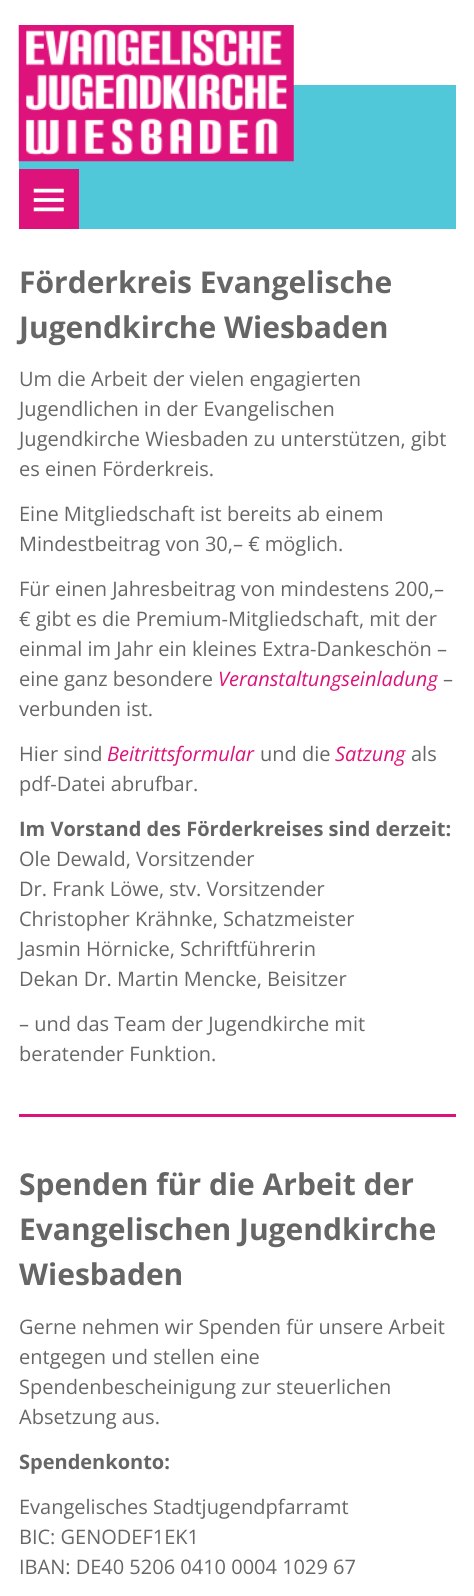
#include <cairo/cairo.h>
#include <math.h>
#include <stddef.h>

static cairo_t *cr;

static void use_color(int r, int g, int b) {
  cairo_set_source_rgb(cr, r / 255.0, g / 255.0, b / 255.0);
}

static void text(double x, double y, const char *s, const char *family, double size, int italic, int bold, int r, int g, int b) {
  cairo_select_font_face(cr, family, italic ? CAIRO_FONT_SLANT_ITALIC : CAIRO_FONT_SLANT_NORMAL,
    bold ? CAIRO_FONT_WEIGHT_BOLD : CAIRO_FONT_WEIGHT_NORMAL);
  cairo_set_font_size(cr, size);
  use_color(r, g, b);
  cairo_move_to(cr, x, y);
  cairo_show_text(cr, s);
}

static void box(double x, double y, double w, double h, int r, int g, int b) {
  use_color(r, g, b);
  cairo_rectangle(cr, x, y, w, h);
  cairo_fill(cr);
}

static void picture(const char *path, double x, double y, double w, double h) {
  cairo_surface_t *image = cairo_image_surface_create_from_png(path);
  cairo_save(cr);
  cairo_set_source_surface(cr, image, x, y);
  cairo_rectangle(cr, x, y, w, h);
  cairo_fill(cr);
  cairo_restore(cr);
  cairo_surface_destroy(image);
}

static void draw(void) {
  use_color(255, 255, 255);
  cairo_paint(cr);
  box(19, 85, 437, 144, 80, 200, 217);
  picture("img_01.png", 18, 25, 276, 137);
  box(19, 169, 60, 60, 221, 19, 123);
  picture("img_02.png", 33, 188, 31, 24);
  box(19, 1114, 437, 3, 221, 19, 123);
  text(19, 293, "Förderkreis Evangelische", "Open Sans", 30, 0, 1, 102, 102, 102);
  text(19, 338, "Jugendkirche Wiesbaden", "Open Sans", 30, 0, 1, 102, 102, 102);
  text(19, 386, "Um die Arbeit der vielen engagierten", "Open Sans", 20, 0, 0, 102, 102, 102);
  text(19, 416, "Jugendlichen in der Evangelischen", "Open Sans", 20, 0, 0, 102, 102, 102);
  text(19, 446, "Jugendkirche Wiesbaden zu unterstützen, gibt", "Open Sans", 20, 0, 0, 102, 102, 102);
  text(19, 476, "es einen Förderkreis.", "Open Sans", 20, 0, 0, 102, 102, 102);
  text(19, 521, "Eine Mitgliedschaft ist bereits ab einem", "Open Sans", 20, 0, 0, 102, 102, 102);
  text(19, 551, "Mindestbeitrag von 30,– € möglich.", "Open Sans", 20, 0, 0, 102, 102, 102);
  text(19, 596, "Für einen Jahresbeitrag von mindestens 200,–", "Open Sans", 20, 0, 0, 102, 102, 102);
  text(19, 626, "€ gibt es die Premium-Mitgliedschaft, mit der", "Open Sans", 20, 0, 0, 102, 102, 102);
  text(19, 656, "einmal im Jahr ein kleines Extra-Dankeschön –", "Open Sans", 20, 0, 0, 102, 102, 102);
  text(19, 686, "eine ganz besondere", "Open Sans", 20, 0, 0, 102, 102, 102);
  text(218, 686, "Veranstaltungseinladung", "Open Sans", 20, 1, 0, 221, 19, 123);
  text(443, 686, "–", "Open Sans", 20, 0, 0, 102, 102, 102);
  text(19, 716, "verbunden ist.", "Open Sans", 20, 0, 0, 102, 102, 102);
  text(19, 761, "Hier sind", "Open Sans", 20, 0, 0, 102, 102, 102);
  text(107, 761, "Beitrittsformular", "Open Sans", 20, 1, 0, 221, 19, 123);
  text(260, 761, "und die", "Open Sans", 20, 0, 0, 102, 102, 102);
  text(335, 761, "Satzung", "Open Sans", 20, 1, 0, 221, 19, 123);
  text(411, 761, "als", "Open Sans", 20, 0, 0, 102, 102, 102);
  text(19, 791, "pdf-Datei abrufbar.", "Open Sans", 20, 0, 0, 102, 102, 102);
  text(19, 836, "Im Vorstand des Förderkreises sind derzeit:", "Open Sans", 20, 0, 1, 102, 102, 102);
  text(19, 866, "Ole Dewald, Vorsitzender", "Open Sans", 20, 0, 0, 102, 102, 102);
  text(19, 896, "Dr. Frank Löwe, stv. Vorsitzender", "Open Sans", 20, 0, 0, 102, 102, 102);
  text(19, 926, "Christopher Krähnke, Schatzmeister", "Open Sans", 20, 0, 0, 102, 102, 102);
  text(19, 956, "Jasmin Hörnicke, Schriftführerin", "Open Sans", 20, 0, 0, 102, 102, 102);
  text(19, 986, "Dekan Dr. Martin Mencke, Beisitzer", "Open Sans", 20, 0, 0, 102, 102, 102);
  text(19, 1031, "– und das Team der Jugendkirche mit", "Open Sans", 20, 0, 0, 102, 102, 102);
  text(19, 1061, "beratender Funktion.", "Open Sans", 20, 0, 0, 102, 102, 102);
  text(19, 1195, "Spenden für die Arbeit der", "Open Sans", 30, 0, 1, 102, 102, 102);
  text(19, 1240, "Evangelischen Jugendkirche", "Open Sans", 30, 0, 1, 102, 102, 102);
  text(19, 1285, "Wiesbaden", "Open Sans", 30, 0, 1, 102, 102, 102);
  text(19, 1334, "Gerne nehmen wir Spenden für unsere Arbeit", "Open Sans", 20, 0, 0, 102, 102, 102);
  text(19, 1364, "entgegen und stellen eine", "Open Sans", 20, 0, 0, 102, 102, 102);
  text(19, 1394, "Spendenbescheinigung zur steuerlichen", "Open Sans", 20, 0, 0, 102, 102, 102);
  text(19, 1424, "Absetzung aus.", "Open Sans", 20, 0, 0, 102, 102, 102);
  text(19, 1469, "Spendenkonto:", "Open Sans", 20, 0, 1, 102, 102, 102);
  text(19, 1514, "Evangelisches Stadtjugendpfarramt", "Open Sans", 20, 0, 0, 102, 102, 102);
  text(19, 1544, "BIC: GENODEF1EK1", "Open Sans", 20, 0, 0, 102, 102, 102);
  text(19, 1574, "IBAN: DE40 5206 0410 0004 1029 67", "Open Sans", 20, 0, 0, 102, 102, 102);
}

int main(void) {
  cairo_surface_t *surface = cairo_image_surface_create(CAIRO_FORMAT_RGB24, 474, 1596);
  cr = cairo_create(surface);
  cairo_font_options_t *options = cairo_font_options_create();
  cairo_font_options_set_hint_metrics(options, CAIRO_HINT_METRICS_OFF);
  cairo_font_options_set_hint_style(options, CAIRO_HINT_STYLE_NONE);
  cairo_set_font_options(cr, options);
  cairo_set_miter_limit(cr, 4);
  draw();
  cairo_surface_write_to_png(surface, "out.png");
  cairo_font_options_destroy(options);
  cairo_destroy(cr);
  cairo_surface_destroy(surface);
  return 0;
}
